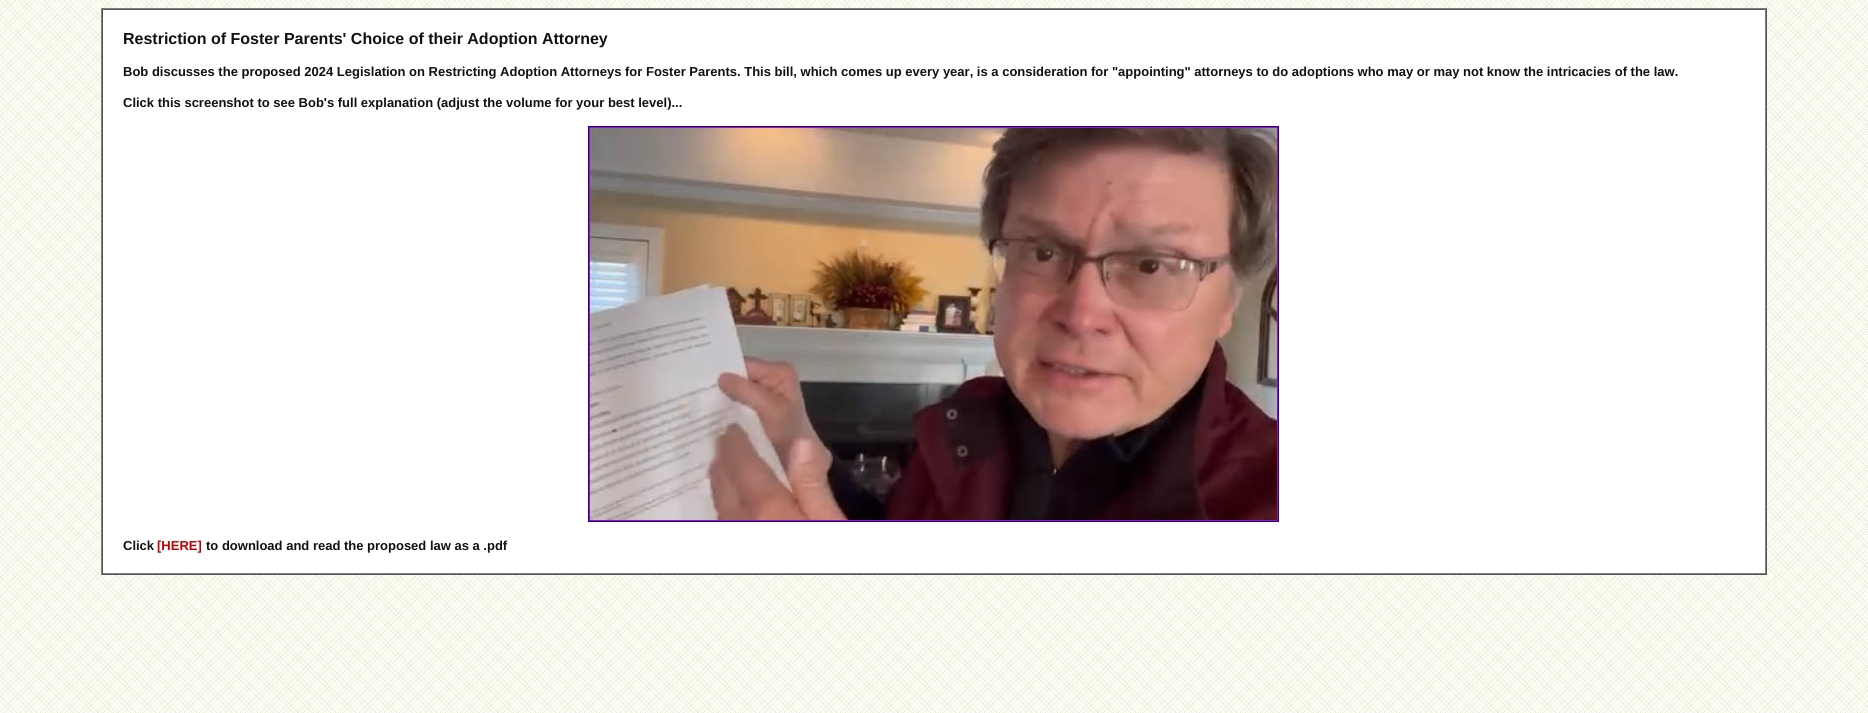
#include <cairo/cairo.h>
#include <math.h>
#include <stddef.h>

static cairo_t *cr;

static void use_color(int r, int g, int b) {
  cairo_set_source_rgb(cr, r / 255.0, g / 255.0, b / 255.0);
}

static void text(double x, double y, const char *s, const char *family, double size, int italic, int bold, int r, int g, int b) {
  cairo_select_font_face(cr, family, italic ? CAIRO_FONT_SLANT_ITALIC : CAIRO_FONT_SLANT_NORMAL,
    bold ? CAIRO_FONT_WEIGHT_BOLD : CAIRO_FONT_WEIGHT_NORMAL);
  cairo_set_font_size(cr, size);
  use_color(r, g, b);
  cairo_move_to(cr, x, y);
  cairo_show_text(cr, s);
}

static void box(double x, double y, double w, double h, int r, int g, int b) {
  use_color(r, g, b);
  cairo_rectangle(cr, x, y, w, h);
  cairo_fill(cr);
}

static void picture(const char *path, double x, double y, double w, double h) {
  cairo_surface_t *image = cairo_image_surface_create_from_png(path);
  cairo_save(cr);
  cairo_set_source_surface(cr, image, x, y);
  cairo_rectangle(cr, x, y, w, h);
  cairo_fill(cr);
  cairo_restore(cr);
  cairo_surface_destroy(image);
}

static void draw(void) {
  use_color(255, 255, 255);
  cairo_paint(cr);
  picture("img_01.png", 0, 0, 1868, 713);
  box(101, 8, 1666, 1, 128, 128, 128);
  box(1766, 8, 1, 567, 85, 85, 85);
  box(101, 574, 1666, 1, 85, 85, 85);
  box(101, 8, 1, 567, 128, 128, 128);
  box(103, 10, 1662, 563, 255, 255, 255);
  box(102, 9, 1664, 1, 85, 85, 85);
  box(1765, 9, 1, 565, 128, 128, 128);
  box(102, 573, 1664, 1, 128, 128, 128);
  box(102, 9, 1, 565, 85, 85, 85);
  cairo_rectangle(cr, 588.5, 126.5, 690, 395);
  use_color(0, 0, 238);
  cairo_set_line_width(cr, 1);
  cairo_stroke(cr);
  picture("img_02.png", 589, 127, 689, 394);
  text(123, 44, "Restriction of Foster Parents' Choice of their Adoption Attorney", "Liberation Sans", 16, 0, 1, 17, 17, 17);
  text(123, 76, "Bob discusses the proposed 2024 Legislation on Restricting Adoption Attorneys for Foster Parents. This bill, which comes up every year, is a consideration for \"appointing\" attorneys to do adoptions who may or may not know the intricacies of the law.", "Liberation Sans", 13, 0, 1, 17, 17, 17);
  text(123, 107, "Click this screenshot to see Bob's full explanation (adjust the volume for your best level)...", "Liberation Sans", 13, 0, 1, 17, 17, 17);
  text(123, 550, "Click", "Liberation Sans", 13, 0, 1, 17, 17, 17);
  text(157, 550, "[HERE]", "Liberation Sans", 13, 0, 1, 187, 0, 0);
  text(206, 550, "to download and read the proposed law as a .pdf", "Liberation Sans", 13, 0, 1, 17, 17, 17);
}

int main(void) {
  cairo_surface_t *surface = cairo_image_surface_create(CAIRO_FORMAT_RGB24, 1868, 713);
  cr = cairo_create(surface);
  cairo_font_options_t *options = cairo_font_options_create();
  cairo_font_options_set_hint_metrics(options, CAIRO_HINT_METRICS_OFF);
  cairo_font_options_set_hint_style(options, CAIRO_HINT_STYLE_NONE);
  cairo_set_font_options(cr, options);
  cairo_set_miter_limit(cr, 4);
  draw();
  cairo_surface_write_to_png(surface, "out.png");
  cairo_font_options_destroy(options);
  cairo_destroy(cr);
  cairo_surface_destroy(surface);
  return 0;
}
